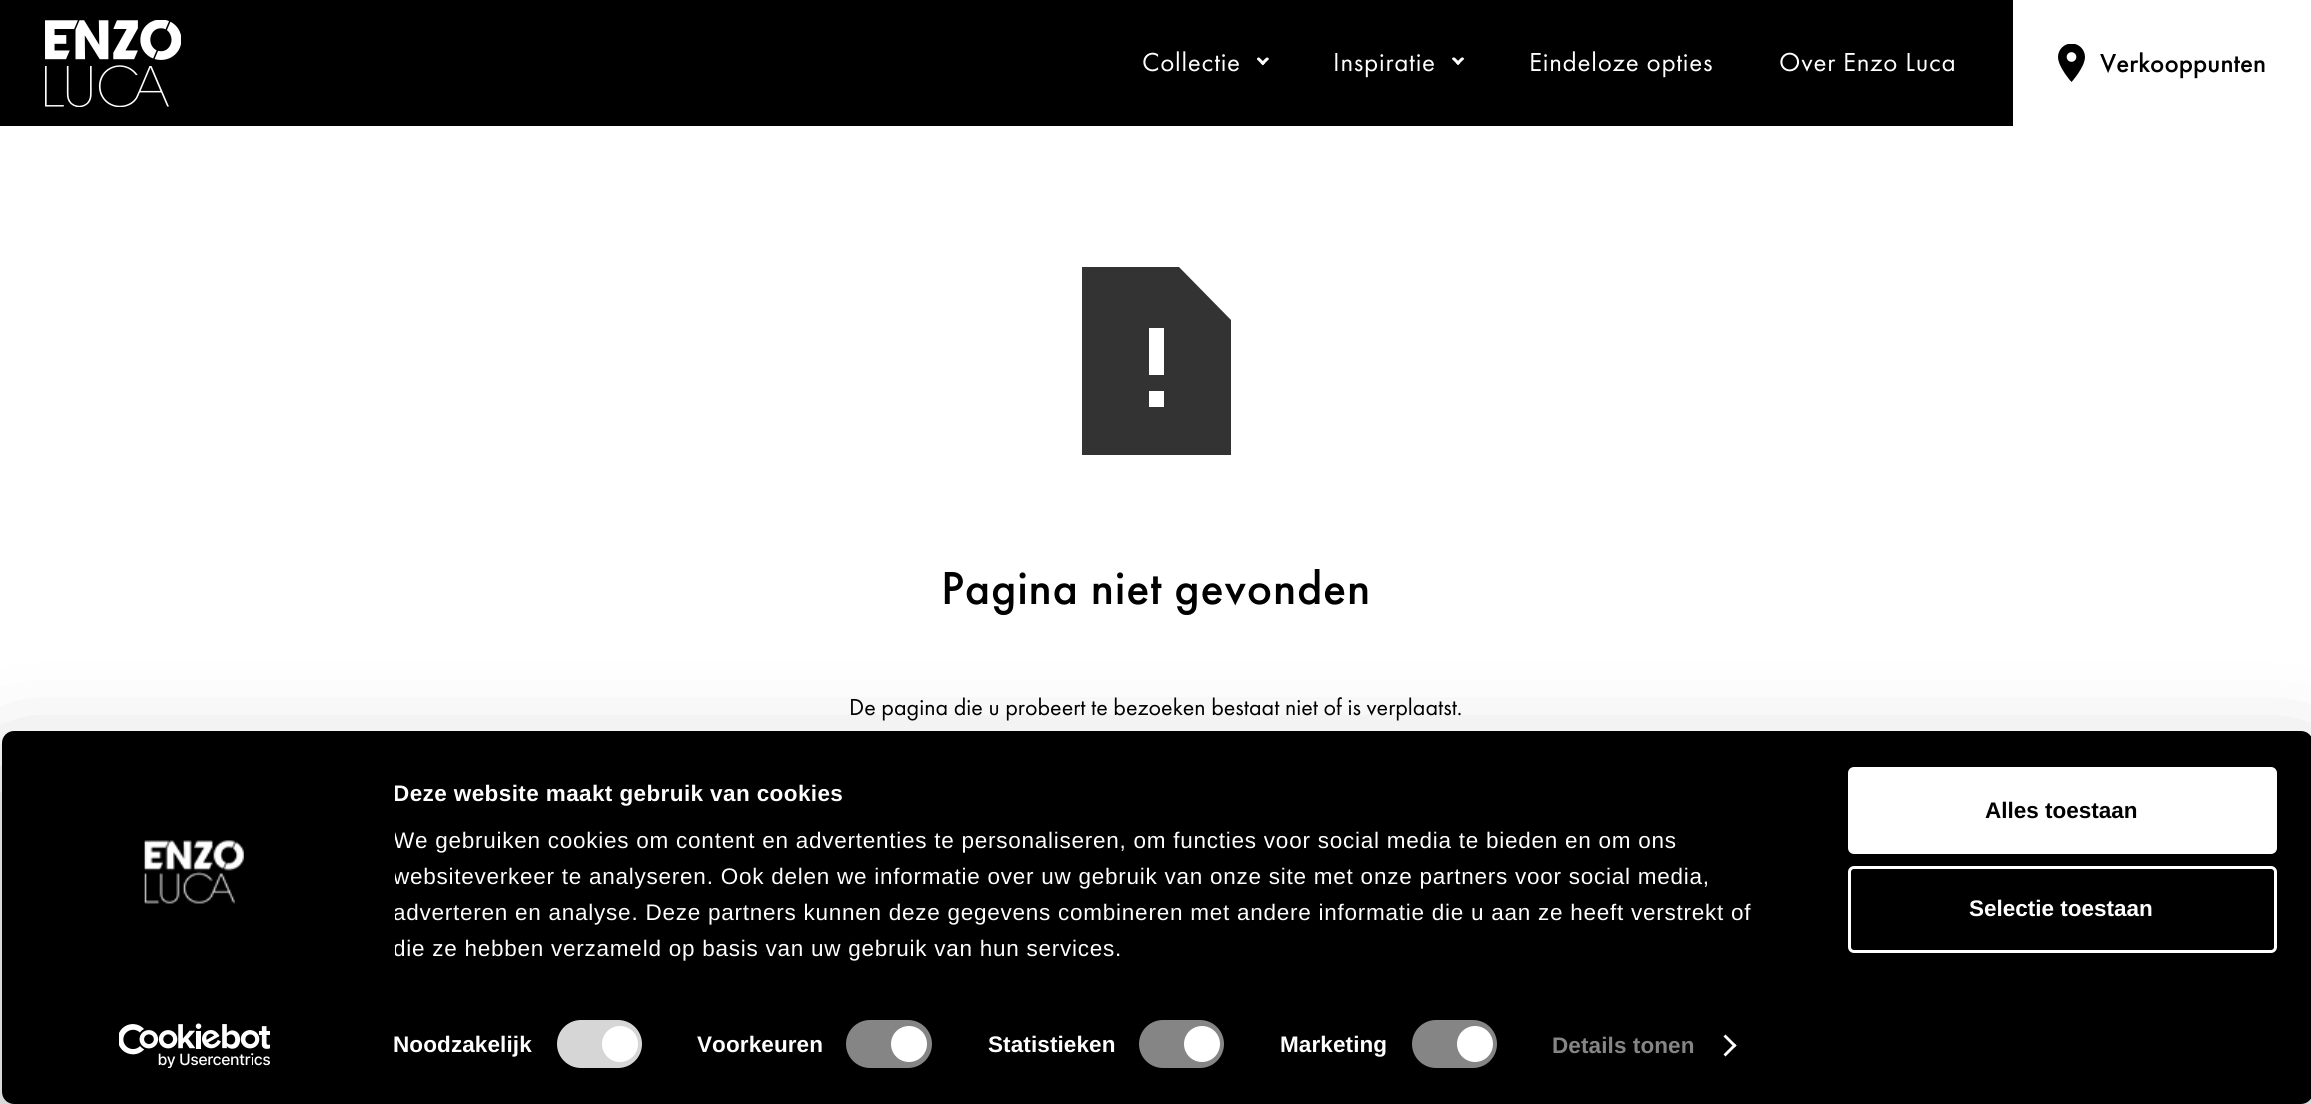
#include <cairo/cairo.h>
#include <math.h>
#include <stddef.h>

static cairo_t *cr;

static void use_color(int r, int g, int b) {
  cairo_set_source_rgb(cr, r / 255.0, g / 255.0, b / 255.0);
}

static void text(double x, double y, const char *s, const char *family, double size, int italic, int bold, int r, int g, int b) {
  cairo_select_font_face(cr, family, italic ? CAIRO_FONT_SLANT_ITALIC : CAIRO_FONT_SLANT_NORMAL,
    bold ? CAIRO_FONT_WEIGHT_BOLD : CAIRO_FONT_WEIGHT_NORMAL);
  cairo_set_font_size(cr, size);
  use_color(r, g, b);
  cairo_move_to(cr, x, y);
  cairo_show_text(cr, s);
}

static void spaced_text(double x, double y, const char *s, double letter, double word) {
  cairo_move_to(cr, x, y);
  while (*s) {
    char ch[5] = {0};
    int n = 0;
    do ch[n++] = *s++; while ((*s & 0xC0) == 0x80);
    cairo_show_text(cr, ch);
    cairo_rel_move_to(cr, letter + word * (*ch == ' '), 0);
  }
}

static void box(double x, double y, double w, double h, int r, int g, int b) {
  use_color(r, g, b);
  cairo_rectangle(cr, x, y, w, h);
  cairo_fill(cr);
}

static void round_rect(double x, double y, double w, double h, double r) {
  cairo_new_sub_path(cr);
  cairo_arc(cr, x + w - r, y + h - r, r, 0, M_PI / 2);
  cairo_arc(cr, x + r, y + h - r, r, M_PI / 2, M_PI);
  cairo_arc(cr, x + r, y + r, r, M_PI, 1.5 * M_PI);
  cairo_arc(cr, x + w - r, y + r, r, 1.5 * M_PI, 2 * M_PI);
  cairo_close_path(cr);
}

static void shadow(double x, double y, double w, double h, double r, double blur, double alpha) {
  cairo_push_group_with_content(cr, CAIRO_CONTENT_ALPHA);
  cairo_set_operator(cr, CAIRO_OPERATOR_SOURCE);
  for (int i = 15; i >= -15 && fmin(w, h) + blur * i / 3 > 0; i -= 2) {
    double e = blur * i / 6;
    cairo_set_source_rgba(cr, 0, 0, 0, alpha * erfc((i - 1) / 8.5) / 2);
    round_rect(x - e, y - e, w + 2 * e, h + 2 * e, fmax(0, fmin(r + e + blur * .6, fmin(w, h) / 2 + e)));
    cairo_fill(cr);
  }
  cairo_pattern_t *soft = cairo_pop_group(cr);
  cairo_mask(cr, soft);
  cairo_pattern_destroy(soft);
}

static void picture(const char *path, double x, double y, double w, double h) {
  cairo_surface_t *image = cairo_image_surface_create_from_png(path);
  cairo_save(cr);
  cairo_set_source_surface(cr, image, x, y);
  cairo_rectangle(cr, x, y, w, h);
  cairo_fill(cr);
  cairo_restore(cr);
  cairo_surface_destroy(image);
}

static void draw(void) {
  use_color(255, 255, 255);
  cairo_paint(cr);
  box(0, 0, 2013, 126, 0, 0, 0);
  picture("img_01.png", 45, 20, 136, 87);
  picture("img_02.png", 1257, 57, 12, 9);
  picture("img_03.png", 1452, 57, 13, 8);
  picture("img_04.png", 2058, 44, 27, 38);
  use_color(51, 51, 51);
  cairo_set_fill_rule(cr, CAIRO_FILL_RULE_EVEN_ODD);
  cairo_new_path(cr);
  cairo_move_to(cr, 1082, 267);
  cairo_line_to(cr, 1179, 267);
  cairo_line_to(cr, 1231, 320);
  cairo_line_to(cr, 1231, 455);
  cairo_line_to(cr, 1082, 455);
  cairo_close_path(cr);
  cairo_move_to(cr, 1149, 328);
  cairo_line_to(cr, 1164, 328);
  cairo_line_to(cr, 1164, 375);
  cairo_line_to(cr, 1149, 375);
  cairo_close_path(cr);
  cairo_move_to(cr, 1149, 391);
  cairo_line_to(cr, 1164, 391);
  cairo_line_to(cr, 1164, 407);
  cairo_line_to(cr, 1149, 407);
  cairo_close_path(cr);
  cairo_fill(cr);
  cairo_save(cr);
  cairo_new_path(cr);
  cairo_move_to(cr, 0, 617);
  cairo_line_to(cr, 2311, 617);
  cairo_line_to(cr, 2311, 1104);
  cairo_line_to(cr, 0, 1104);
  cairo_close_path(cr);
  cairo_move_to(cr, 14, 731);
  cairo_line_to(cr, 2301, 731);
  cairo_curve_to(cr, 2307.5, 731, 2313, 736.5, 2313, 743);
  cairo_line_to(cr, 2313, 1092);
  cairo_curve_to(cr, 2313, 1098.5, 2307.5, 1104, 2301, 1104);
  cairo_line_to(cr, 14, 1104);
  cairo_curve_to(cr, 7.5, 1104, 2, 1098.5, 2, 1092);
  cairo_line_to(cr, 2, 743);
  cairo_curve_to(cr, 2, 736.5, 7.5, 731, 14, 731);
  cairo_close_path(cr);
  cairo_clip(cr);
  use_color(0, 0, 0);
  shadow(2, 776, 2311, 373, 12, 52.5, 0.3);
  cairo_restore(cr);
  use_color(0, 0, 0);
  round_rect(2, 731, 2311, 373, 12);
  cairo_fill(cr);
  picture("img_05.png", 144, 840, 100, 64);
  picture("img_06.png", 119, 1023, 151, 45);
  use_color(214, 214, 214);
  round_rect(557, 1020, 85, 48, 24);
  cairo_fill(cr);
  use_color(255, 255, 255);
  cairo_arc(cr, 620, 1044, 18, 0, 2 * M_PI);
  cairo_fill(cr);
  use_color(133, 133, 133);
  round_rect(846, 1020, 86, 48, 24);
  cairo_fill(cr);
  use_color(255, 255, 255);
  cairo_arc(cr, 909, 1044, 18, 0, 2 * M_PI);
  cairo_fill(cr);
  use_color(133, 133, 133);
  round_rect(1139, 1020, 85, 48, 24);
  cairo_fill(cr);
  use_color(255, 255, 255);
  cairo_arc(cr, 1202, 1044, 18, 0, 2 * M_PI);
  cairo_fill(cr);
  use_color(133, 133, 133);
  round_rect(1412, 1020, 85, 48, 24);
  cairo_fill(cr);
  use_color(255, 255, 255);
  cairo_arc(cr, 1475, 1044, 18, 0, 2 * M_PI);
  cairo_fill(cr);
  cairo_set_fill_rule(cr, CAIRO_FILL_RULE_WINDING);
  cairo_new_path(cr);
  cairo_move_to(cr, 1725.5, 1034.5);
  cairo_line_to(cr, 1736.5, 1045.5);
  cairo_line_to(cr, 1734.5, 1047.5);
  cairo_line_to(cr, 1723.5, 1036.5);
  cairo_close_path(cr);
  cairo_fill(cr);
  cairo_new_path(cr);
  cairo_move_to(cr, 1734.5, 1043.5);
  cairo_line_to(cr, 1736.5, 1045.5);
  cairo_line_to(cr, 1725.5, 1056.5);
  cairo_line_to(cr, 1723.5, 1054.5);
  cairo_close_path(cr);
  cairo_fill(cr);
  round_rect(1849.5, 768.5, 426, 84, 4.5);
  cairo_fill_preserve(cr);
  cairo_set_line_width(cr, 3);
  cairo_stroke(cr);
  round_rect(1849.5, 867.5, 426, 84, 4.5);
  cairo_stroke(cr);
  cairo_select_font_face(cr, "Futura PT", CAIRO_FONT_SLANT_NORMAL, CAIRO_FONT_WEIGHT_NORMAL);
  cairo_set_font_size(cr, 27);
  spaced_text(1142, 71, "Collectie", 0.75, 0);
  spaced_text(1333, 71, "Inspiratie", 0.75, 0);
  spaced_text(1529, 71, "Eindeloze opties", 0.75, 0);
  spaced_text(1779, 71, "Over Enzo Luca", 0.75, 0);
  text(2100, 72, "Verkooppunten", "Futura PT Medium", 27, 0, 0, 0, 0, 0);
  cairo_set_font_size(cr, 48);
  spaced_text(941, 604, "Pagina niet gevonden", 0.75, 0);
  text(849, 715, "De pagina die u probeert te bezoeken bestaat niet of is verplaatst.", "Futura PT", 24, 0, 0, 0, 0, 0);
  cairo_save(cr);
  cairo_rectangle(cr, 395, 776, 1410, 190);
  cairo_clip(cr);
  cairo_select_font_face(cr, "Liberation Sans", CAIRO_FONT_SLANT_NORMAL, CAIRO_FONT_WEIGHT_BOLD);
  cairo_set_font_size(cr, 22.5);
  use_color(255, 255, 255);
  spaced_text(393, 801, "Deze website maakt gebruik van cookies", 0.4, 0);
  cairo_select_font_face(cr, "Liberation Sans", CAIRO_FONT_SLANT_NORMAL, CAIRO_FONT_WEIGHT_NORMAL);
  spaced_text(393, 848, "We gebruiken cookies om content en advertenties te personaliseren, om functies voor social media te bieden en om ons", 0.75, 0);
  spaced_text(393, 884, "websiteverkeer te analyseren. Ook delen we informatie over uw gebruik van onze site met onze partners voor social media,", 0.75, 0);
  spaced_text(393, 920, "adverteren en analyse. Deze partners kunnen deze gegevens combineren met andere informatie die u aan ze heeft verstrekt of", 0.75, 0);
  spaced_text(393, 956, "die ze hebben verzameld op basis van uw gebruik van hun services.", 0.75, 0);
  cairo_restore(cr);
  cairo_select_font_face(cr, "Liberation Sans", CAIRO_FONT_SLANT_NORMAL, CAIRO_FONT_WEIGHT_BOLD);
  cairo_set_font_size(cr, 22.5);
  use_color(255, 255, 255);
  spaced_text(393, 1052, "Noodzakelijk", 0.1, 0);
  spaced_text(697, 1052, "Voorkeuren", 0.1, 0);
  spaced_text(988, 1052, "Statistieken", 0.1, 0);
  spaced_text(1280, 1052, "Marketing", 0.1, 0);
  use_color(133, 133, 133);
  spaced_text(1552, 1053, "Details tonen", 0.1, 0);
  text(1985, 818, "Alles toestaan", "Liberation Sans", 22.5, 0, 1, 0, 0, 0);
  text(1969, 916, "Selectie toestaan", "Liberation Sans", 22.5, 0, 1, 255, 255, 255);
}

int main(void) {
  cairo_surface_t *surface = cairo_image_surface_create(CAIRO_FORMAT_RGB24, 2311, 1104);
  cr = cairo_create(surface);
  cairo_font_options_t *options = cairo_font_options_create();
  cairo_font_options_set_hint_metrics(options, CAIRO_HINT_METRICS_OFF);
  cairo_font_options_set_hint_style(options, CAIRO_HINT_STYLE_NONE);
  cairo_set_font_options(cr, options);
  cairo_set_miter_limit(cr, 4);
  draw();
  cairo_surface_write_to_png(surface, "out.png");
  cairo_font_options_destroy(options);
  cairo_destroy(cr);
  cairo_surface_destroy(surface);
  return 0;
}
